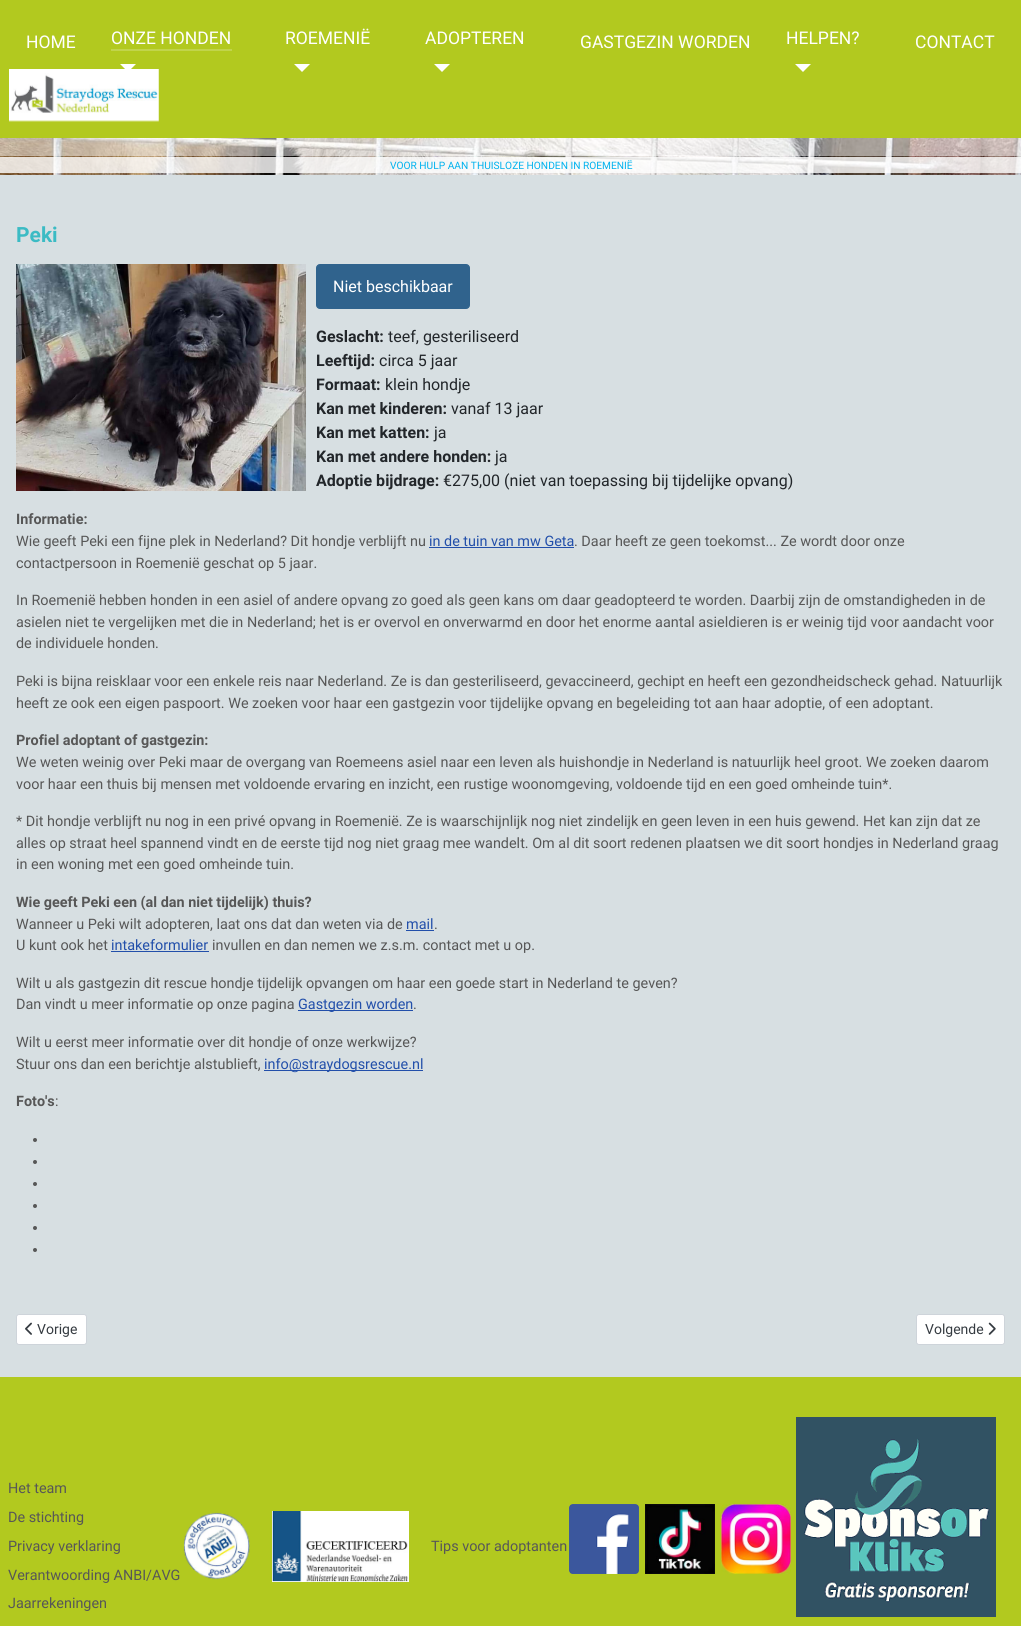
#include <cairo/cairo.h>
#include <math.h>
#include <stddef.h>

static cairo_t *cr;

static void use_color(int r, int g, int b) {
  cairo_set_source_rgb(cr, r / 255.0, g / 255.0, b / 255.0);
}

static void text(double x, double y, const char *s, const char *family, double size, int italic, int bold, int r, int g, int b) {
  cairo_select_font_face(cr, family, italic ? CAIRO_FONT_SLANT_ITALIC : CAIRO_FONT_SLANT_NORMAL,
    bold ? CAIRO_FONT_WEIGHT_BOLD : CAIRO_FONT_WEIGHT_NORMAL);
  cairo_set_font_size(cr, size);
  use_color(r, g, b);
  cairo_move_to(cr, x, y);
  cairo_show_text(cr, s);
}

static void box(double x, double y, double w, double h, int r, int g, int b) {
  use_color(r, g, b);
  cairo_rectangle(cr, x, y, w, h);
  cairo_fill(cr);
}

static void round_rect(double x, double y, double w, double h, double r) {
  cairo_new_sub_path(cr);
  cairo_arc(cr, x + w - r, y + h - r, r, 0, M_PI / 2);
  cairo_arc(cr, x + r, y + h - r, r, M_PI / 2, M_PI);
  cairo_arc(cr, x + r, y + r, r, M_PI, 1.5 * M_PI);
  cairo_arc(cr, x + w - r, y + r, r, 1.5 * M_PI, 2 * M_PI);
  cairo_close_path(cr);
}

static void picture(const char *path, double x, double y, double w, double h) {
  cairo_surface_t *image = cairo_image_surface_create_from_png(path);
  cairo_save(cr);
  cairo_set_source_surface(cr, image, x, y);
  cairo_rectangle(cr, x, y, w, h);
  cairo_fill(cr);
  cairo_restore(cr);
  cairo_surface_destroy(image);
}

static void draw(void) {
  use_color(215, 223, 226);
  cairo_paint(cr);
  box(0, 0, 1021, 138, 178, 201, 31);
  box(111, 49, 121, 2, 193, 212, 76);
  use_color(255, 255, 255);
  cairo_new_path(cr);
  cairo_move_to(cr, 120, 64);
  cairo_line_to(cr, 136, 64);
  cairo_line_to(cr, 128, 72);
  cairo_close_path(cr);
  cairo_fill(cr);
  cairo_new_path(cr);
  cairo_move_to(cr, 294, 64);
  cairo_line_to(cr, 310, 64);
  cairo_line_to(cr, 302, 72);
  cairo_close_path(cr);
  cairo_fill(cr);
  cairo_new_path(cr);
  cairo_move_to(cr, 434, 64);
  cairo_line_to(cr, 450, 64);
  cairo_line_to(cr, 442, 72);
  cairo_close_path(cr);
  cairo_fill(cr);
  cairo_new_path(cr);
  cairo_move_to(cr, 795, 64);
  cairo_line_to(cr, 811, 64);
  cairo_line_to(cr, 803, 72);
  cairo_close_path(cr);
  cairo_fill(cr);
  picture("img_01.png", 9, 69, 150, 53);
  picture("img_02.png", 0, 138, 1021, 37);
  cairo_set_source_rgba(cr, 1, 1, 1, 0.49);
  cairo_rectangle(cr, 0, 138, 1021, 18);
  cairo_fill(cr);
  cairo_set_source_rgba(cr, 1, 1, 1, 0.81);
  cairo_rectangle(cr, 0, 157, 1021, 16);
  cairo_fill(cr);
  picture("img_03.png", 16, 264, 290, 227);
  use_color(48, 99, 141);
  round_rect(316.5, 264.5, 153, 44, 3.5);
  cairo_fill_preserve(cr);
  cairo_set_line_width(cr, 1);
  cairo_stroke(cr);
  box(429, 547, 145, 1, 34, 79, 170);
  box(406, 930, 28, 1, 34, 79, 170);
  box(111, 951, 98, 1, 34, 79, 170);
  box(298, 1010, 115, 1, 34, 79, 170);
  box(264, 1070, 159, 1, 34, 79, 170);
  use_color(87, 87, 87);
  cairo_arc(cr, 35, 1140, 2, 0, 2 * M_PI);
  cairo_fill(cr);
  cairo_arc(cr, 35, 1162, 2, 0, 2 * M_PI);
  cairo_fill(cr);
  cairo_arc(cr, 35, 1184, 2, 0, 2 * M_PI);
  cairo_fill(cr);
  cairo_arc(cr, 35, 1206, 2, 0, 2 * M_PI);
  cairo_fill(cr);
  cairo_arc(cr, 35, 1228, 2, 0, 2 * M_PI);
  cairo_fill(cr);
  cairo_arc(cr, 35, 1250, 2, 0, 2 * M_PI);
  cairo_fill(cr);
  use_color(255, 255, 255);
  round_rect(16.5, 1314.5, 70, 30, 2.5);
  cairo_fill_preserve(cr);
  use_color(206, 212, 218);
  cairo_stroke(cr);
  picture("img_04.png", 25, 1322, 7, 13);
  use_color(255, 255, 255);
  round_rect(916.5, 1314.5, 88, 30, 2.5);
  cairo_fill_preserve(cr);
  use_color(206, 212, 218);
  cairo_stroke(cr);
  picture("img_05.png", 988, 1322, 8, 13);
  box(0, 1377, 1021, 249, 178, 201, 31);
  picture("img_06.png", 183, 1512, 67, 68);
  picture("img_07.png", 272, 1511, 137, 71);
  picture("img_08.png", 569, 1504, 70, 70);
  picture("img_09.png", 645, 1504, 70, 70);
  picture("img_10.png", 721, 1504, 70, 70);
  picture("img_11.png", 796, 1417, 200, 200);
  text(26, 48, "HOME", "Roboto", 17.5, 0, 0, 255, 255, 255);
  text(111, 44, "ONZE HONDEN", "Roboto", 17.5, 0, 0, 255, 255, 255);
  text(285, 44, "ROEMENIË", "Roboto", 17.5, 0, 0, 255, 255, 255);
  text(425, 44, "ADOPTEREN", "Roboto", 17.5, 0, 0, 255, 255, 255);
  text(580, 48, "GASTGEZIN WORDEN", "Roboto", 17.5, 0, 0, 255, 255, 255);
  text(786, 44, "HELPEN?", "Roboto", 17.5, 0, 0, 255, 255, 255);
  text(915, 48, "CONTACT", "Roboto", 17.5, 0, 0, 255, 255, 255);
  text(390, 169, "VOOR HULP AAN THUISLOZE HONDEN IN ROEMENIË", "Roboto", 10.2, 0, 0, 0, 178, 238);
  text(16, 242, "Peki", "Roboto", 21, 0, 1, 59, 187, 196);
  text(333, 292, "Niet beschikbaar", "Roboto", 16, 0, 0, 255, 255, 255);
  text(316, 342, "Geslacht:", "Roboto", 16, 0, 1, 34, 38, 42);
  text(388, 342, "teef, gesteriliseerd", "Roboto", 16, 0, 0, 34, 38, 42);
  text(316, 366, "Leeftijd:", "Roboto", 16, 0, 1, 34, 38, 42);
  text(379, 366, "circa 5 jaar", "Roboto", 16, 0, 0, 34, 38, 42);
  text(316, 390, "Formaat:", "Roboto", 16, 0, 1, 34, 38, 42);
  text(385, 390, "klein hondje", "Roboto", 16, 0, 0, 34, 38, 42);
  text(316, 414, "Kan met kinderen:", "Roboto", 16, 0, 1, 34, 38, 42);
  text(451, 414, "vanaf 13 jaar", "Roboto", 16, 0, 0, 34, 38, 42);
  text(316, 438, "Kan met katten:", "Roboto", 16, 0, 1, 34, 38, 42);
  text(434, 438, "ja", "Roboto", 16, 0, 0, 34, 38, 42);
  text(316, 462, "Kan met andere honden:", "Roboto", 16, 0, 1, 34, 38, 42);
  text(495, 462, "ja", "Roboto", 16, 0, 0, 34, 38, 42);
  text(316, 486, "Adoptie bijdrage:", "Roboto", 16, 0, 1, 34, 38, 42);
  text(443, 486, "€275,00 (niet van toepassing bij tijdelijke opvang)", "Roboto", 16, 0, 0, 34, 38, 42);
  text(16, 524, "Informatie:", "Roboto", 14.4, 0, 1, 87, 87, 87);
  text(16, 546, "Wie geeft Peki een fijne plek in Nederland? Dit hondje verblijft nu", "Roboto", 14.4, 0, 0, 87, 87, 87);
  text(429, 546, "in de tuin van mw Geta", "Roboto", 14.4, 0, 0, 34, 79, 170);
  text(574, 546, ". Daar heeft ze geen toekomst... Ze wordt door onze", "Roboto", 14.4, 0, 0, 87, 87, 87);
  text(16, 568, "contactpersoon in Roemenië geschat op 5 jaar.", "Roboto", 14.4, 0, 0, 87, 87, 87);
  text(16, 605, "In Roemenië hebben honden in een asiel of andere opvang zo goed als geen kans om daar geadopteerd te worden. Daarbij zijn de omstandigheden in de", "Roboto", 14.4, 0, 0, 87, 87, 87);
  text(16, 627, "asielen niet te vergelijken met die in Nederland; het is er overvol en onverwarmd en door het enorme aantal asieldieren is er weinig tijd voor aandacht voor", "Roboto", 14.4, 0, 0, 87, 87, 87);
  text(16, 648, "de individuele honden.", "Roboto", 14.4, 0, 0, 87, 87, 87);
  text(16, 686, "Peki is bijna reisklaar voor een enkele reis naar Nederland. Ze is dan gesteriliseerd, gevaccineerd, gechipt en heeft een gezondheidscheck gehad. Natuurlijk", "Roboto", 14.4, 0, 0, 87, 87, 87);
  text(16, 708, "heeft ze ook een eigen paspoort. We zoeken voor haar een gastgezin voor tijdelijke opvang en begeleiding tot aan haar adoptie, of een adoptant.", "Roboto", 14.4, 0, 0, 87, 87, 87);
  text(16, 745, "Profiel adoptant of gastgezin:", "Roboto", 14.4, 0, 1, 87, 87, 87);
  text(16, 767, "We weten weinig over Peki maar de overgang van Roemeens asiel naar een leven als huishondje in Nederland is natuurlijk heel groot. We zoeken daarom", "Roboto", 14.4, 0, 0, 87, 87, 87);
  text(16, 789, "voor haar een thuis bij mensen met voldoende ervaring en inzicht, een rustige woonomgeving, voldoende tijd en een goed omheinde tuin*.", "Roboto", 14.4, 0, 0, 87, 87, 87);
  text(16, 826, "* Dit hondje verblijft nu nog in een privé opvang in Roemenië. Ze is waarschijnlijk nog niet zindelijk en geen leven in een huis gewend. Het kan zijn dat ze", "Roboto", 14.4, 0, 0, 87, 87, 87);
  text(16, 848, "alles op straat heel spannend vindt en de eerste tijd nog niet graag mee wandelt. Om al dit soort redenen plaatsen we dit soort hondjes in Nederland graag", "Roboto", 14.4, 0, 0, 87, 87, 87);
  text(16, 869, "in een woning met een goed omheinde tuin.", "Roboto", 14.4, 0, 0, 87, 87, 87);
  text(16, 907, "Wie geeft Peki een (al dan niet tijdelijk) thuis?", "Roboto", 14.4, 0, 1, 87, 87, 87);
  text(16, 929, "Wanneer u Peki wilt adopteren, laat ons dat dan weten via de", "Roboto", 14.4, 0, 0, 87, 87, 87);
  text(406, 929, "mail", "Roboto", 14.4, 0, 0, 34, 79, 170);
  text(434, 929, ".", "Roboto", 14.4, 0, 0, 87, 87, 87);
  text(16, 950, "U kunt ook het", "Roboto", 14.4, 0, 0, 87, 87, 87);
  text(111, 950, "intakeformulier", "Roboto", 14.4, 0, 0, 34, 79, 170);
  text(212, 950, "invullen en dan nemen we z.s.m. contact met u op.", "Roboto", 14.4, 0, 0, 87, 87, 87);
  text(16, 988, "Wilt u als gastgezin dit rescue hondje tijdelijk opvangen om haar een goede start in Nederland te geven?", "Roboto", 14.4, 0, 0, 87, 87, 87);
  text(16, 1009, "Dan vindt u meer informatie op onze pagina", "Roboto", 14.4, 0, 0, 87, 87, 87);
  text(298, 1009, "Gastgezin worden", "Roboto", 14.4, 0, 0, 34, 79, 170);
  text(413, 1009, ".", "Roboto", 14.4, 0, 0, 87, 87, 87);
  text(16, 1047, "Wilt u eerst meer informatie over dit hondje of onze werkwijze?", "Roboto", 14.4, 0, 0, 87, 87, 87);
  text(16, 1069, "Stuur ons dan een berichtje alstublieft,", "Roboto", 14.4, 0, 0, 87, 87, 87);
  text(264, 1069, "info@straydogsrescue.nl", "Roboto", 14.4, 0, 0, 34, 79, 170);
  text(16, 1106, "Foto's", "Roboto", 14.4, 0, 1, 87, 87, 87);
  text(55, 1106, ":", "Roboto", 14.4, 0, 0, 87, 87, 87);
  text(37, 1334, "Vorige", "Roboto", 14, 0, 0, 53, 59, 65);
  text(925, 1334, "Volgende", "Roboto", 14, 0, 0, 53, 59, 65);
  text(8, 1493, "Het team", "Roboto", 14.4, 0, 0, 87, 87, 87);
  text(8, 1522, "De stichting", "Roboto", 14.4, 0, 0, 87, 87, 87);
  text(8, 1551, "Privacy verklaring", "Roboto", 14.4, 0, 0, 87, 87, 87);
  text(8, 1580, "Verantwoording ANBI/AVG", "Roboto", 14.4, 0, 0, 87, 87, 87);
  text(8, 1608, "Jaarrekeningen", "Roboto", 14.4, 0, 0, 87, 87, 87);
  text(431, 1551, "Tips voor adoptanten", "Roboto", 14.4, 0, 0, 87, 87, 87);
}

int main(void) {
  cairo_surface_t *surface = cairo_image_surface_create(CAIRO_FORMAT_RGB24, 1021, 1626);
  cr = cairo_create(surface);
  cairo_font_options_t *options = cairo_font_options_create();
  cairo_font_options_set_hint_metrics(options, CAIRO_HINT_METRICS_OFF);
  cairo_font_options_set_hint_style(options, CAIRO_HINT_STYLE_NONE);
  cairo_set_font_options(cr, options);
  cairo_set_miter_limit(cr, 4);
  draw();
  cairo_surface_write_to_png(surface, "out.png");
  cairo_font_options_destroy(options);
  cairo_destroy(cr);
  cairo_surface_destroy(surface);
  return 0;
}
